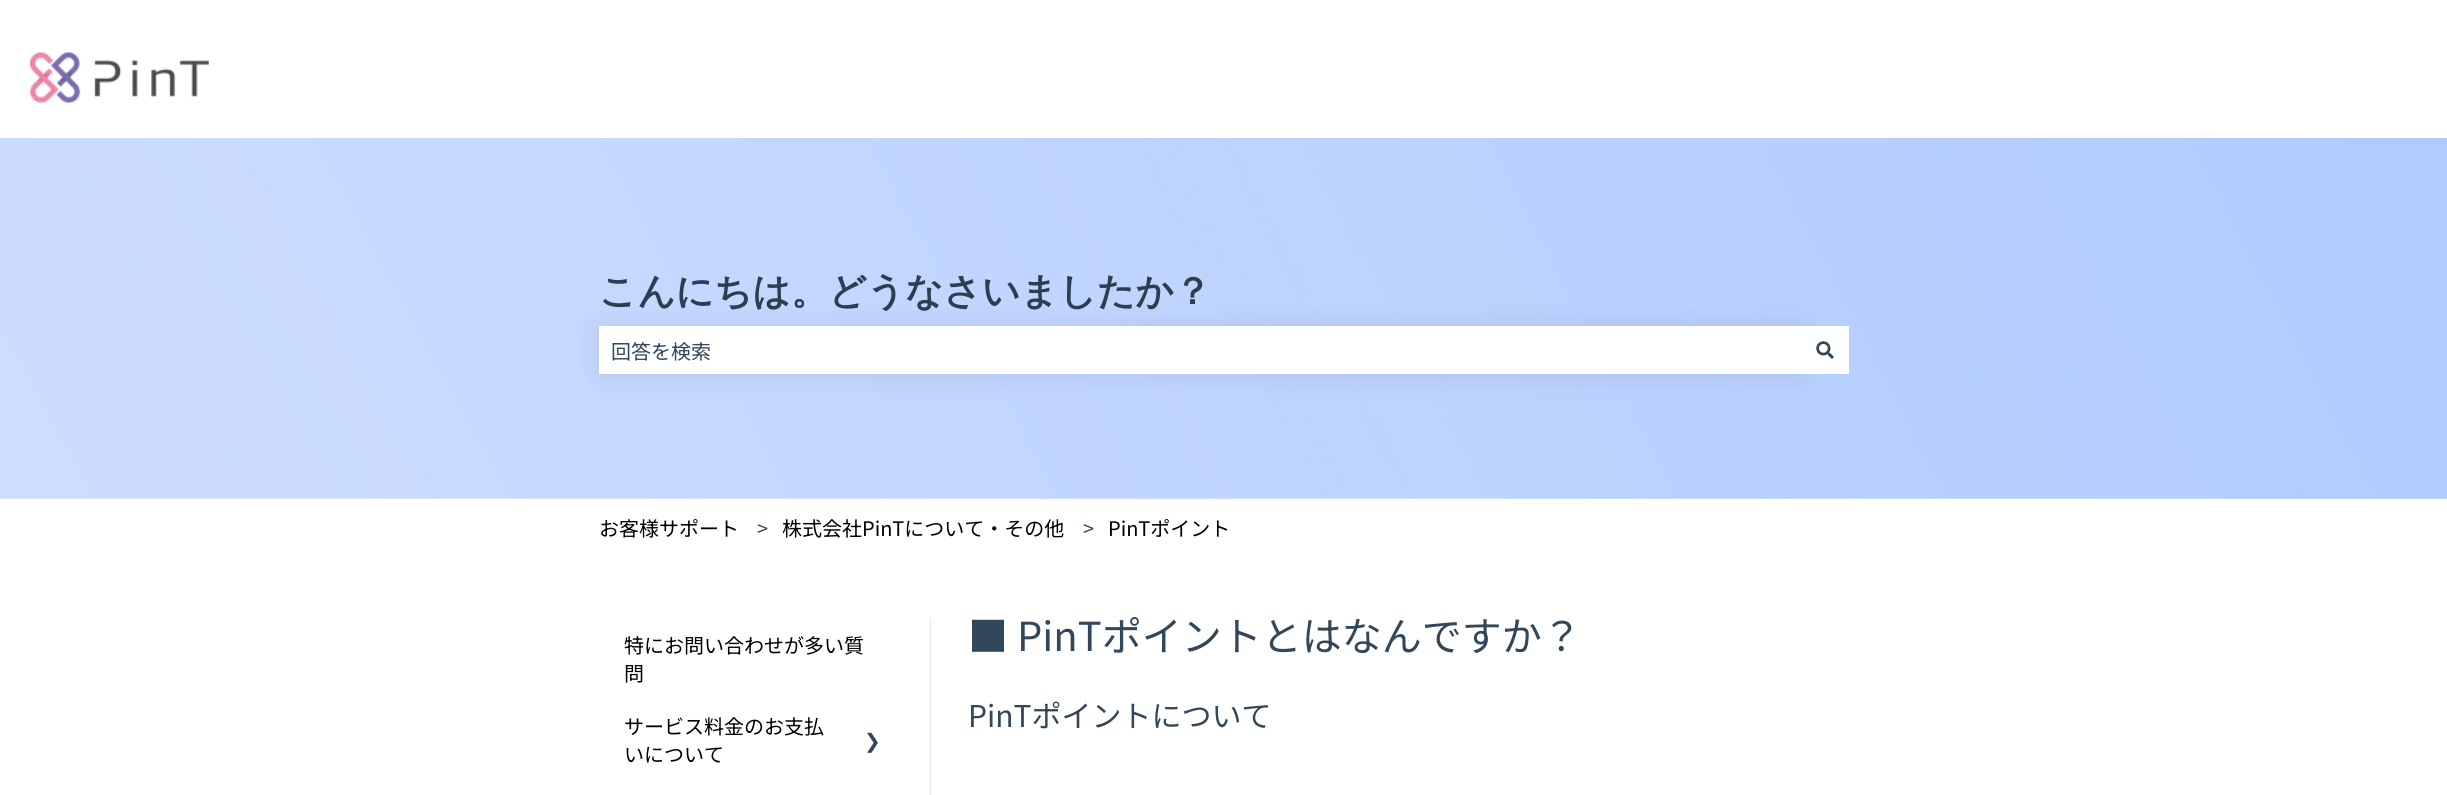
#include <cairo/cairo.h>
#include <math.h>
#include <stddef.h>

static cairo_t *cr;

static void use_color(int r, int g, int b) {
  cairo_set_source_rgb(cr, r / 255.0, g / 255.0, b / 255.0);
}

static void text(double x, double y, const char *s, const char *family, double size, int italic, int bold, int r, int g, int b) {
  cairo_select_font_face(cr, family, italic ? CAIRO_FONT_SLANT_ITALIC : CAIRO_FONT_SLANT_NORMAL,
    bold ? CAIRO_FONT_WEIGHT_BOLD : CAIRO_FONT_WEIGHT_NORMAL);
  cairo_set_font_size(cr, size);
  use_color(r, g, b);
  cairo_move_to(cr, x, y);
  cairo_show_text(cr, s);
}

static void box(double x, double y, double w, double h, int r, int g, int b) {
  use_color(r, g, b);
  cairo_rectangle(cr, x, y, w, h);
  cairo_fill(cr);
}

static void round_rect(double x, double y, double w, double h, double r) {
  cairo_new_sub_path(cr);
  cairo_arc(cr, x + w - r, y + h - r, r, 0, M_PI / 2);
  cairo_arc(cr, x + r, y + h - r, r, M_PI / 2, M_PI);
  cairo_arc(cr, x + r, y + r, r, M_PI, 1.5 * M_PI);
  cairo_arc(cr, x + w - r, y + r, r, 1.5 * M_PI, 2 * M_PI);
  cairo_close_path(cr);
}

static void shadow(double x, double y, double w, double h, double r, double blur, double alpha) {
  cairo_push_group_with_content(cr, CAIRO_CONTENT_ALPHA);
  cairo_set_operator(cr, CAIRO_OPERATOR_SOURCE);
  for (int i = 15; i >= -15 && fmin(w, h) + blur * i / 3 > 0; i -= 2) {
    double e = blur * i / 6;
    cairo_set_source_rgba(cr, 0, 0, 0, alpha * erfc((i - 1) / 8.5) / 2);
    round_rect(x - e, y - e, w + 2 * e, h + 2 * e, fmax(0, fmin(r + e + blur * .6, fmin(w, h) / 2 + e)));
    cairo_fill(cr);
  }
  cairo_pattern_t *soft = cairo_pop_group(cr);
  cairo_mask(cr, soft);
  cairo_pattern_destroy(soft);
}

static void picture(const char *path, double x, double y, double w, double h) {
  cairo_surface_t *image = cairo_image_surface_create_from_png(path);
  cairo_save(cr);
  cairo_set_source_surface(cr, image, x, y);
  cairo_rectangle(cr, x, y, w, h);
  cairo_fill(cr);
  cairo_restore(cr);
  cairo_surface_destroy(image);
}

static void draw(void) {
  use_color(255, 255, 255);
  cairo_paint(cr);
  picture("img_01.png", 30, 52, 179, 51);
  picture("img_02.png", 0, 138, 2447, 361);
  use_color(0, 0, 0);
  shadow(599, 328, 1202, 47, 0, 15, 0.08);
  box(599, 326, 1250, 48, 255, 255, 255);
  picture("img_03.png", 1816, 341, 18, 18);
  box(930, 618, 1, 177, 226, 235, 244);
  text(599, 304, "こんにちは。どうなさいましたか？", "WenQuanYi Zen Hei", 37.5, 0, 1, 45, 62, 80);
  text(611, 359, "回答を検索", "Noto Sans JP", 20, 0, 0, 51, 71, 91);
  text(599, 536, "お客様サポート", "Noto Sans JP", 20, 0, 0, 0, 0, 0);
  text(757, 536, ">", "Noto Sans JP", 20, 0, 0, 51, 71, 91);
  text(782, 536, "株式会社PinTについて・その他", "Noto Sans JP", 20, 0, 0, 0, 0, 0);
  text(1083, 536, ">", "Noto Sans JP", 20, 0, 0, 51, 71, 91);
  text(1108, 536, "PinTポイント", "Noto Sans JP", 20, 0, 0, 0, 0, 0);
  text(624, 653, "特にお問い合わせが多い質", "Noto Sans JP", 20, 0, 0, 0, 0, 0);
  text(624, 681, "問", "Noto Sans JP", 20, 0, 0, 0, 0, 0);
  text(624, 734, "サービス料金のお支払", "Noto Sans JP", 20, 0, 0, 0, 0, 0);
  text(624, 762, "いについて", "Noto Sans JP", 20, 0, 0, 0, 0, 0);
  text(864, 748, "❯", "DejaVu Sans", 20, 0, 0, 51, 71, 91);
  text(968, 651, "■ PinTポイントとはなんですか？", "Noto Sans JP", 40, 0, 0, 51, 71, 91);
  text(968, 727, "PinTポイントについて", "Noto Sans JP", 30, 0, 0, 51, 71, 91);
}

int main(void) {
  cairo_surface_t *surface = cairo_image_surface_create(CAIRO_FORMAT_RGB24, 2447, 795);
  cr = cairo_create(surface);
  cairo_font_options_t *options = cairo_font_options_create();
  cairo_font_options_set_hint_metrics(options, CAIRO_HINT_METRICS_OFF);
  cairo_font_options_set_hint_style(options, CAIRO_HINT_STYLE_NONE);
  cairo_set_font_options(cr, options);
  cairo_set_miter_limit(cr, 4);
  draw();
  cairo_surface_write_to_png(surface, "out.png");
  cairo_font_options_destroy(options);
  cairo_destroy(cr);
  cairo_surface_destroy(surface);
  return 0;
}
